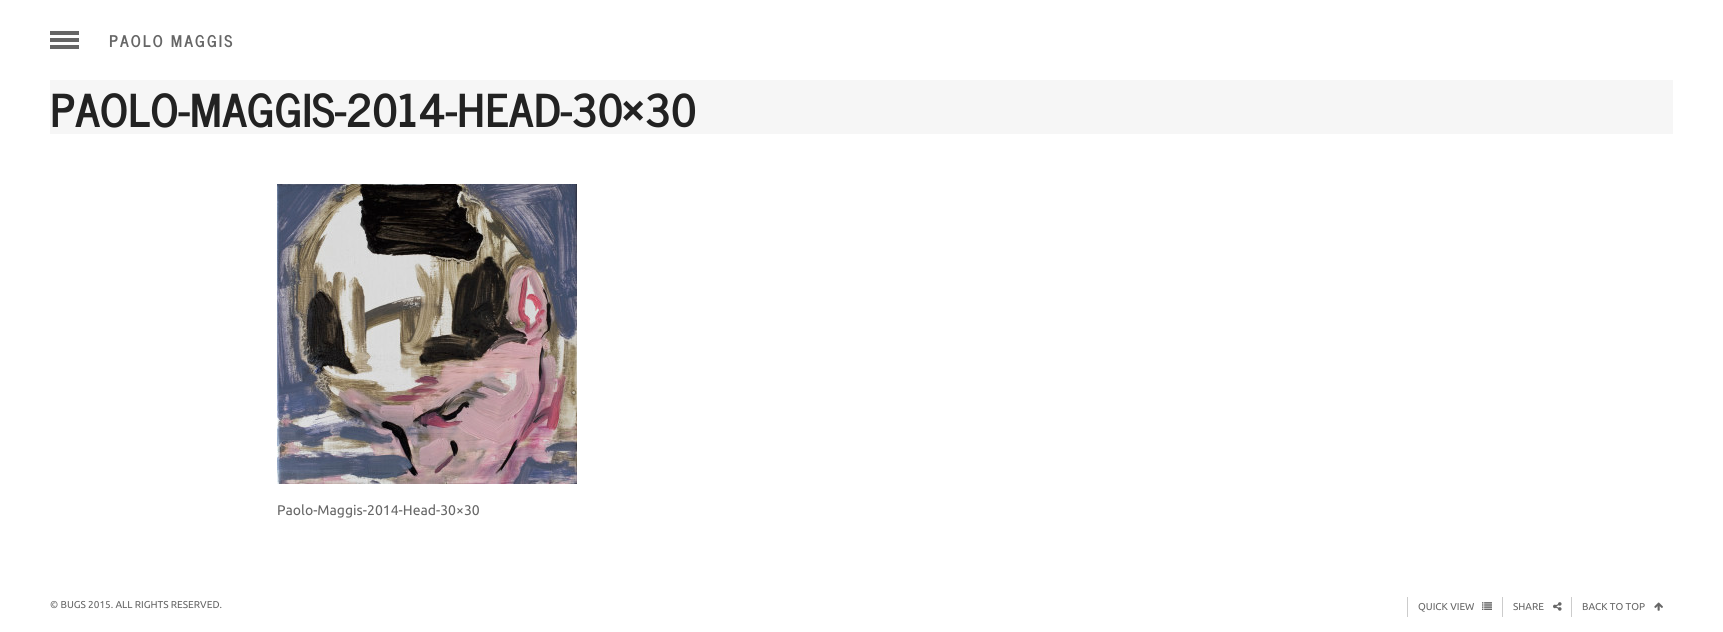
#include <cairo/cairo.h>
#include <math.h>
#include <stddef.h>

static cairo_t *cr;

static void use_color(int r, int g, int b) {
  cairo_set_source_rgb(cr, r / 255.0, g / 255.0, b / 255.0);
}

static void text(double x, double y, const char *s, const char *family, double size, int italic, int bold, int r, int g, int b) {
  cairo_select_font_face(cr, family, italic ? CAIRO_FONT_SLANT_ITALIC : CAIRO_FONT_SLANT_NORMAL,
    bold ? CAIRO_FONT_WEIGHT_BOLD : CAIRO_FONT_WEIGHT_NORMAL);
  cairo_set_font_size(cr, size);
  use_color(r, g, b);
  cairo_move_to(cr, x, y);
  cairo_show_text(cr, s);
}

static void spaced_text(double x, double y, const char *s, double letter, double word) {
  cairo_move_to(cr, x, y);
  while (*s) {
    char ch[5] = {0};
    int n = 0;
    do ch[n++] = *s++; while ((*s & 0xC0) == 0x80);
    cairo_show_text(cr, ch);
    cairo_rel_move_to(cr, letter + word * (*ch == ' '), 0);
  }
}

static void box(double x, double y, double w, double h, int r, int g, int b) {
  use_color(r, g, b);
  cairo_rectangle(cr, x, y, w, h);
  cairo_fill(cr);
}

static void picture(const char *path, double x, double y, double w, double h) {
  cairo_surface_t *image = cairo_image_surface_create_from_png(path);
  cairo_save(cr);
  cairo_set_source_surface(cr, image, x, y);
  cairo_rectangle(cr, x, y, w, h);
  cairo_fill(cr);
  cairo_restore(cr);
  cairo_surface_destroy(image);
}

static void draw(void) {
  use_color(255, 255, 255);
  cairo_paint(cr);
  box(50, 31, 29, 4, 102, 102, 102);
  box(50, 38, 29, 4, 102, 102, 102);
  box(50, 45, 29, 4, 102, 102, 102);
  box(50, 80, 1623, 54, 246, 246, 246);
  picture("img_01.png", 277, 184, 300, 300);
  box(1407, 597, 1, 20, 204, 204, 204);
  picture("img_02.png", 1482, 602, 10, 8);
  box(1502, 597, 1, 20, 204, 204, 204);
  picture("img_03.png", 1553, 602, 9, 9);
  box(1571, 597, 1, 20, 204, 204, 204);
  picture("img_04.png", 1654, 602, 9, 9);
  cairo_select_font_face(cr, "News Cycle", CAIRO_FONT_SLANT_NORMAL, CAIRO_FONT_WEIGHT_BOLD);
  cairo_set_font_size(cr, 16);
  use_color(102, 102, 102);
  spaced_text(109, 47, "PAOLO MAGGIS", 2, 0);
  text(50, 127, "PAOLO-MAGGIS-2014-HEAD-30×30", "News Cycle", 45, 0, 1, 34, 34, 34);
  text(277, 515, "Paolo-Maggis-2014-Head-30×30", "Ubuntu", 14, 0, 0, 102, 102, 102);
  text(50, 608, "© BUGS 2015. ALL RIGHTS RESERVED.", "Ubuntu", 10, 0, 0, 102, 102, 102);
  text(1418, 610, "QUICK VIEW", "Ubuntu", 10, 0, 0, 102, 102, 102);
  text(1513, 610, "SHARE", "Ubuntu", 10, 0, 0, 102, 102, 102);
  text(1582, 610, "BACK TO TOP", "Ubuntu", 10, 0, 0, 102, 102, 102);
}

int main(void) {
  cairo_surface_t *surface = cairo_image_surface_create(CAIRO_FORMAT_RGB24, 1723, 632);
  cr = cairo_create(surface);
  cairo_font_options_t *options = cairo_font_options_create();
  cairo_font_options_set_hint_metrics(options, CAIRO_HINT_METRICS_OFF);
  cairo_font_options_set_hint_style(options, CAIRO_HINT_STYLE_NONE);
  cairo_set_font_options(cr, options);
  cairo_set_miter_limit(cr, 4);
  draw();
  cairo_surface_write_to_png(surface, "out.png");
  cairo_font_options_destroy(options);
  cairo_destroy(cr);
  cairo_surface_destroy(surface);
  return 0;
}
